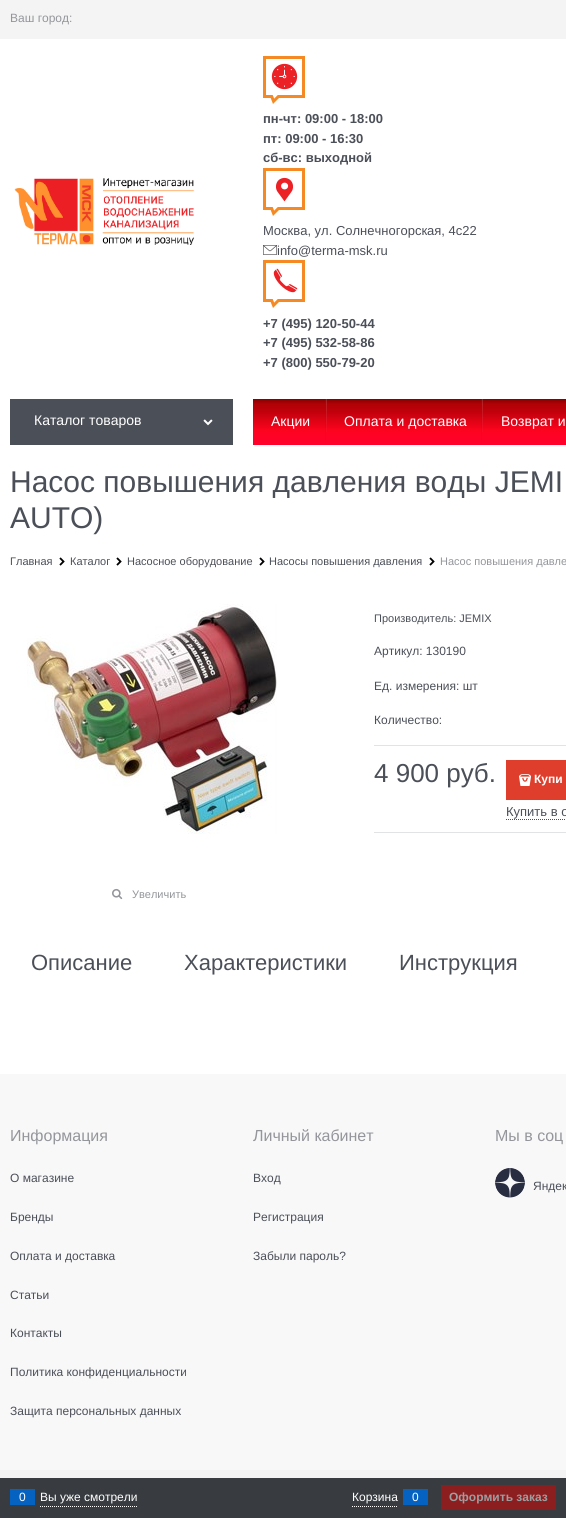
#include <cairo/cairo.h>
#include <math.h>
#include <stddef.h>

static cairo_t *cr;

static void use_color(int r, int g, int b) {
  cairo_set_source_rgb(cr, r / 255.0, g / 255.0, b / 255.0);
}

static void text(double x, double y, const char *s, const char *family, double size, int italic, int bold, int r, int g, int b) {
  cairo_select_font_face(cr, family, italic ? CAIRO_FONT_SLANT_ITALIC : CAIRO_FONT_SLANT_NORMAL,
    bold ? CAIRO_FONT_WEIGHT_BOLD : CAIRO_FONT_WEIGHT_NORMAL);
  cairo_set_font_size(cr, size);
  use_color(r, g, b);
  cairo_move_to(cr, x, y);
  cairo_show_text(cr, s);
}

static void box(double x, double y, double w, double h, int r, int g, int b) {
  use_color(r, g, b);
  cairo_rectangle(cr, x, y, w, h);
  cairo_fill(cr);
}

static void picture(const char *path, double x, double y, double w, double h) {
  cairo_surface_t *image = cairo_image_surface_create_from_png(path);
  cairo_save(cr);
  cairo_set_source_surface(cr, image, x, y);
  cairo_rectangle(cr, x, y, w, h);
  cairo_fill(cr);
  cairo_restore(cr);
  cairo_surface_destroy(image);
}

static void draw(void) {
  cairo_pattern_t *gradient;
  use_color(255, 255, 255);
  cairo_paint(cr);
  box(0, 0, 566, 39, 244, 244, 244);
  picture("img_01.png", 14, 178, 181, 67);
  picture("img_02.png", 263, 56, 42, 48);
  picture("img_03.png", 263, 168, 42, 48);
  picture("img_04.png", 263, 245, 14, 10);
  picture("img_05.png", 263, 260, 42, 48);
  box(10, 399, 223, 46, 75, 79, 88);
  picture("img_06.png", 203, 419, 10, 7);
  gradient = cairo_pattern_create_linear(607, 399, 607, 445);
  cairo_pattern_add_color_stop_rgba(gradient, 0, 0.533, 0, 0.008, 1);
  cairo_pattern_add_color_stop_rgba(gradient, 0.11, 0.686, 0.008, 0.024, 1);
  cairo_pattern_add_color_stop_rgba(gradient, 0.14, 0.706, 0.004, 0.027, 1);
  cairo_pattern_add_color_stop_rgba(gradient, 0.19, 0.714, 0.004, 0.031, 1);
  cairo_pattern_add_color_stop_rgba(gradient, 0.32, 0.784, 0, 0.051, 1);
  cairo_pattern_add_color_stop_rgba(gradient, 0.41, 0.827, 0.012, 0.075, 1);
  cairo_pattern_add_color_stop_rgba(gradient, 0.43, 0.851, 0.008, 0.071, 1);
  cairo_pattern_add_color_stop_rgba(gradient, 0.62, 0.949, 0.008, 0.106, 1);
  cairo_pattern_add_color_stop_rgba(gradient, 0.65, 0.976, 0.012, 0.11, 1);
  cairo_pattern_add_color_stop_rgba(gradient, 0.73, 1, 0.012, 0.133, 1);
  cairo_pattern_add_color_stop_rgba(gradient, 0.95, 1, 0.004, 0.169, 1);
  cairo_pattern_add_color_stop_rgba(gradient, 1, 1, 0.004, 0.161, 1);
  cairo_set_source(cr, gradient);
  cairo_pattern_destroy(gradient);
  cairo_rectangle(cr, 253, 399, 313, 46);
  cairo_fill(cr);
  gradient = cairo_pattern_create_linear(327, 399, 327, 445);
  cairo_pattern_add_color_stop_rgba(gradient, 0, 1, 1, 1, 0.14);
  cairo_pattern_add_color_stop_rgba(gradient, 0.72, 1, 1, 1, 0.02);
  cairo_pattern_add_color_stop_rgba(gradient, 1, 1, 1, 1, 0);
  cairo_set_source(cr, gradient);
  cairo_pattern_destroy(gradient);
  cairo_rectangle(cr, 326, 399, 1, 33);
  cairo_fill(cr);
  gradient = cairo_pattern_create_linear(326, 399, 326, 445);
  cairo_pattern_add_color_stop_rgba(gradient, 0, 0.224, 0.224, 0.224, 0.39);
  cairo_pattern_add_color_stop_rgba(gradient, 0.17, 0.224, 0.224, 0.224, 0.33);
  cairo_pattern_add_color_stop_rgba(gradient, 0.61, 0.224, 0.224, 0.224, 0.12);
  cairo_pattern_add_color_stop_rgba(gradient, 0.96, 0.224, 0.224, 0.224, 0.01);
  cairo_pattern_add_color_stop_rgba(gradient, 0.98, 1, 1, 1, 0.01);
  cairo_pattern_add_color_stop_rgba(gradient, 1, 1, 1, 1, 0);
  cairo_set_source(cr, gradient);
  cairo_pattern_destroy(gradient);
  cairo_rectangle(cr, 325, 399, 1, 46);
  cairo_fill(cr);
  gradient = cairo_pattern_create_linear(483, 399, 483, 445);
  cairo_pattern_add_color_stop_rgba(gradient, 0, 1, 1, 1, 0.14);
  cairo_pattern_add_color_stop_rgba(gradient, 0.72, 1, 1, 1, 0.02);
  cairo_pattern_add_color_stop_rgba(gradient, 1, 1, 1, 1, 0);
  cairo_set_source(cr, gradient);
  cairo_pattern_destroy(gradient);
  cairo_rectangle(cr, 482, 399, 1, 33);
  cairo_fill(cr);
  gradient = cairo_pattern_create_linear(482, 399, 482, 445);
  cairo_pattern_add_color_stop_rgba(gradient, 0, 0.224, 0.224, 0.224, 0.39);
  cairo_pattern_add_color_stop_rgba(gradient, 0.17, 0.224, 0.224, 0.224, 0.33);
  cairo_pattern_add_color_stop_rgba(gradient, 0.61, 0.224, 0.224, 0.224, 0.12);
  cairo_pattern_add_color_stop_rgba(gradient, 0.96, 0.224, 0.224, 0.224, 0.01);
  cairo_pattern_add_color_stop_rgba(gradient, 0.98, 1, 1, 1, 0.01);
  cairo_pattern_add_color_stop_rgba(gradient, 1, 1, 1, 1, 0);
  cairo_set_source(cr, gradient);
  cairo_pattern_destroy(gradient);
  cairo_rectangle(cr, 481, 399, 1, 46);
  cairo_fill(cr);
  picture("img_07.png", 59, 557, 6, 9);
  picture("img_07.png", 116, 557, 6, 9);
  picture("img_07.png", 259, 557, 6, 9);
  picture("img_07.png", 429, 557, 6, 9);
  box(374, 745, 192, 1, 226, 227, 228);
  box(374, 832, 192, 1, 226, 227, 228);
  box(506, 760, 60, 40, 223, 62, 44);
  picture("img_08.png", 519, 774, 12, 12);
  cairo_new_path(cr);
  cairo_move_to(cr, 506, 819.5);
  cairo_line_to(cr, 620, 819.5);
  use_color(75, 79, 88);
  cairo_set_line_width(cr, 1);
  cairo_set_dash(cr, (double[]){1, 1}, 2, 0);
  cairo_stroke(cr);
  picture("img_09.png", 27, 604, 250, 230);
  picture("img_10.png", 112, 888, 11, 12);
  box(0, 1074, 566, 396, 248, 248, 248);
  picture("img_11.png", 495, 1168, 30, 30);
  box(0, 1470, 566, 8, 243, 243, 243);
  box(0, 1478, 566, 40, 56, 60, 64);
  cairo_new_path(cr);
  cairo_move_to(cr, 40, 1506.5);
  cairo_line_to(cr, 137, 1506.5);
  use_color(255, 255, 255);
  cairo_stroke(cr);
  box(10, 1489, 25, 16, 6, 98, 193);
  cairo_new_path(cr);
  cairo_move_to(cr, 352, 1506.5);
  cairo_line_to(cr, 398, 1506.5);
  use_color(255, 255, 255);
  cairo_stroke(cr);
  box(403, 1489, 25, 16, 6, 98, 193);
  box(441, 1485, 115, 25, 141, 30, 32);
  text(10, 22, "Ваш город:", "Liberation Sans", 12, 0, 0, 148, 150, 155);
  text(263, 123, "пн-чт: 09:00 - 18:00", "Liberation Sans", 13, 0, 1, 75, 79, 88);
  text(263, 143, "пт: 09:00 - 16:30", "Liberation Sans", 13, 0, 1, 75, 79, 88);
  text(263, 162, "сб-вс: выходной", "Liberation Sans", 13, 0, 1, 75, 79, 88);
  text(263, 235, "Москва, ул. Солнечногорская, 4с22", "Liberation Sans", 13, 0, 0, 75, 79, 88);
  text(277, 255, "info@terma-msk.ru", "Liberation Sans", 13, 0, 0, 75, 79, 88);
  text(263, 328, "+7 (495) 120-50-44", "Liberation Sans", 13, 0, 1, 75, 79, 88);
  text(263, 347, "+7 (495) 532-58-86", "Liberation Sans", 13, 0, 1, 75, 79, 88);
  text(263, 367, "+7 (800) 550-79-20", "Liberation Sans", 13, 0, 1, 75, 79, 88);
  text(34, 425, "Каталог товаров", "Liberation Sans", 14, 0, 0, 255, 255, 255);
  text(271, 426, "Акции", "Liberation Sans", 14, 0, 0, 255, 255, 255);
  text(344, 426, "Оплата и доставка", "Liberation Sans", 14, 0, 0, 255, 255, 255);
  text(501, 426, "Возврат и", "Liberation Sans", 14, 0, 0, 255, 255, 255);
  text(10, 492, "Насос повышения давления воды JEMI", "Liberation Sans", 30, 0, 0, 75, 79, 88);
  text(10, 528, "AUTO)", "Liberation Sans", 30, 0, 0, 75, 79, 88);
  text(10, 565, "Главная", "Liberation Sans", 11, 0, 0, 75, 79, 88);
  text(70, 565, "Каталог", "Liberation Sans", 11, 0, 0, 75, 79, 88);
  text(127, 565, "Насосное оборудование", "Liberation Sans", 11, 0, 0, 75, 79, 88);
  text(269, 565, "Насосы повышения давления", "Liberation Sans", 11, 0, 0, 75, 79, 88);
  text(440, 565, "Насос повышения давле", "Liberation Sans", 11, 0, 0, 148, 150, 155);
  text(374, 622, "Производитель: JEMIX", "Liberation Sans", 11, 0, 0, 75, 79, 88);
  text(374, 655, "Артикул: 130190", "Liberation Sans", 12, 0, 0, 75, 79, 88);
  text(374, 690, "Ед. измерения: шт", "Liberation Sans", 12, 0, 0, 75, 79, 88);
  text(374, 724, "Количество:", "Liberation Sans", 12, 0, 0, 75, 79, 88);
  text(374, 782, "4 900 руб.", "Liberation Sans", 26, 0, 0, 75, 79, 88);
  text(534, 783, "Купи", "Liberation Sans", 12, 0, 1, 255, 255, 255);
  text(506, 816, "Купить в о", "Liberation Sans", 13, 0, 0, 75, 79, 88);
  text(132, 898, "Увеличить", "Liberation Sans", 11, 0, 0, 148, 150, 155);
  text(31, 970, "Описание", "Liberation Sans", 22, 0, 0, 75, 79, 88);
  text(184, 970, "Характеристики", "Liberation Sans", 22, 0, 0, 75, 79, 88);
  text(399, 970, "Инструкция", "Liberation Sans", 22, 0, 0, 75, 79, 88);
  text(10, 1141, "Информация", "Liberation Sans", 16, 0, 0, 148, 150, 155);
  text(10, 1182, "О магазине", "Liberation Sans", 12, 0, 0, 75, 79, 88);
  text(10, 1221, "Бренды", "Liberation Sans", 12, 0, 0, 75, 79, 88);
  text(10, 1260, "Оплата и доставка", "Liberation Sans", 12, 0, 0, 75, 79, 88);
  text(10, 1299, "Статьи", "Liberation Sans", 12, 0, 0, 75, 79, 88);
  text(10, 1337, "Контакты", "Liberation Sans", 12, 0, 0, 75, 79, 88);
  text(10, 1376, "Политика конфиденциальности", "Liberation Sans", 12, 0, 0, 75, 79, 88);
  text(10, 1415, "Защита персональных данных", "Liberation Sans", 12, 0, 0, 75, 79, 88);
  text(253, 1141, "Личный кабинет", "Liberation Sans", 16, 0, 0, 148, 150, 155);
  text(253, 1182, "Вход", "Liberation Sans", 12, 0, 0, 75, 79, 88);
  text(253, 1221, "Регистрация", "Liberation Sans", 12, 0, 0, 75, 79, 88);
  text(253, 1260, "Забыли пароль?", "Liberation Sans", 12, 0, 0, 75, 79, 88);
  text(495, 1141, "Мы в соц", "Liberation Sans", 16, 0, 0, 148, 150, 155);
  text(533, 1190, "Яндек", "Liberation Sans", 12, 0, 0, 75, 79, 88);
  text(19, 1501, "0", "Liberation Sans", 12, 0, 0, 255, 255, 255);
  text(40, 1501, "Вы уже смотрели", "Liberation Sans", 12, 0, 0, 255, 255, 255);
  text(352, 1501, "Корзина", "Liberation Sans", 12, 0, 0, 255, 255, 255);
  text(412, 1501, "0", "Liberation Sans", 12, 0, 0, 255, 255, 255);
  text(449, 1501, "Оформить заказ", "Liberation Sans", 12, 0, 1, 156, 158, 160);
}

int main(void) {
  cairo_surface_t *surface = cairo_image_surface_create(CAIRO_FORMAT_RGB24, 566, 1518);
  cr = cairo_create(surface);
  cairo_font_options_t *options = cairo_font_options_create();
  cairo_font_options_set_hint_metrics(options, CAIRO_HINT_METRICS_OFF);
  cairo_font_options_set_hint_style(options, CAIRO_HINT_STYLE_NONE);
  cairo_set_font_options(cr, options);
  cairo_set_miter_limit(cr, 4);
  draw();
  cairo_surface_write_to_png(surface, "out.png");
  cairo_font_options_destroy(options);
  cairo_destroy(cr);
  cairo_surface_destroy(surface);
  return 0;
}
